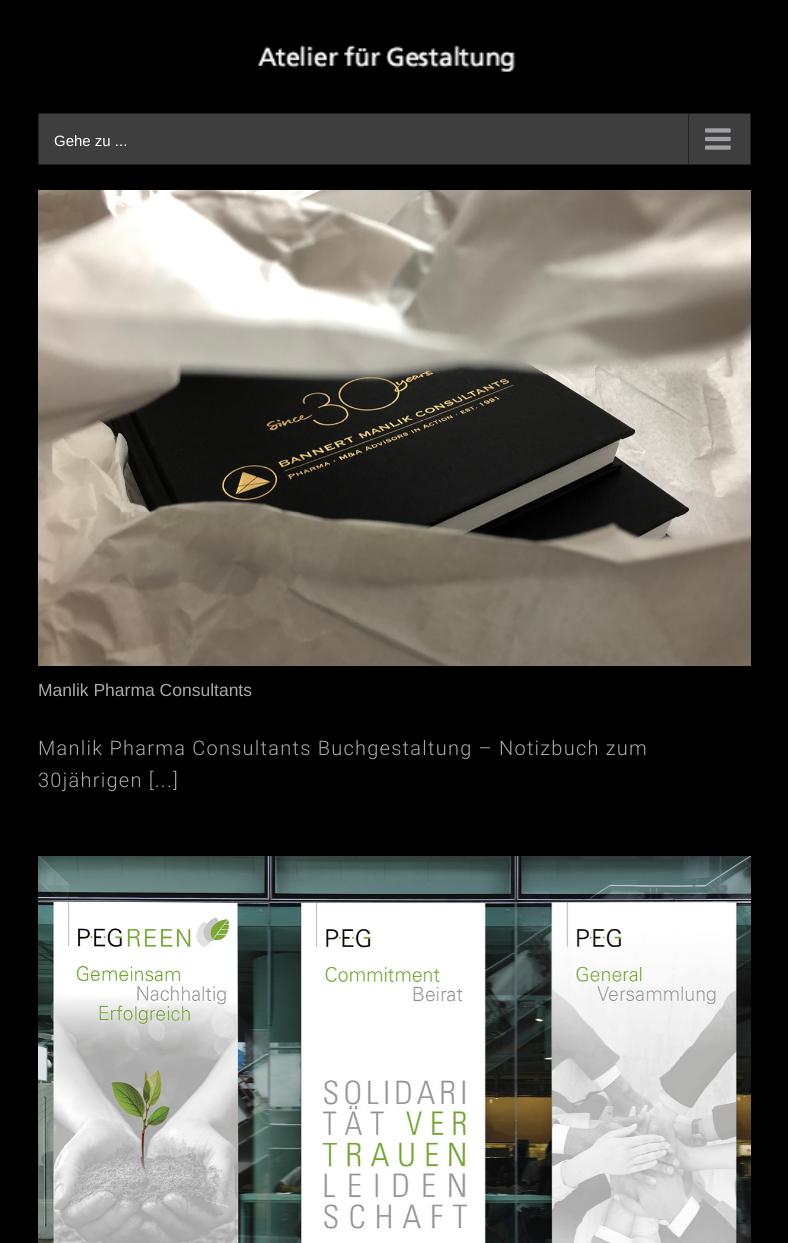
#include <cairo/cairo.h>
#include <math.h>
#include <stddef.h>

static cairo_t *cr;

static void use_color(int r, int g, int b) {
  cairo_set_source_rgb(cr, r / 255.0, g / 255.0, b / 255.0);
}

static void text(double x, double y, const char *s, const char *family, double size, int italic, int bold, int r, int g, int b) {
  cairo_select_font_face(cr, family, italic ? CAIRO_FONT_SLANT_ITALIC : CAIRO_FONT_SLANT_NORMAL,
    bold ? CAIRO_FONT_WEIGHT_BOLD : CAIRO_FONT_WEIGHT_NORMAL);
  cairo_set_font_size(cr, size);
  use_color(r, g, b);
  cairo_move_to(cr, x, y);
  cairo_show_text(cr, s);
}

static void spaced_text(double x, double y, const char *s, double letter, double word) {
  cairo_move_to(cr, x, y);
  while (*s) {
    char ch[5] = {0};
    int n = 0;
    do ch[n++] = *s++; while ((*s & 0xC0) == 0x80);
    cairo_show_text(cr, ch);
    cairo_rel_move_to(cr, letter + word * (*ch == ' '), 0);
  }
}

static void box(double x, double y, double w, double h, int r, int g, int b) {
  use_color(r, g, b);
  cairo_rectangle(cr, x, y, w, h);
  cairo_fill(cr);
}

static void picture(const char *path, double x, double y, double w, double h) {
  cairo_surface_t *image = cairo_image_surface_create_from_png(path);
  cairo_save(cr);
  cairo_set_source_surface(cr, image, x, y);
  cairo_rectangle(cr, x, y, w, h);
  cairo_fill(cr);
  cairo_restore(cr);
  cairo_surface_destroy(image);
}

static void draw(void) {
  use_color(0, 0, 0);
  cairo_paint(cr);
  picture("img_01.png", 258, 45, 258, 27);
  use_color(62, 62, 62);
  cairo_rectangle(cr, 38.5, 113.5, 712, 51);
  cairo_fill_preserve(cr);
  use_color(33, 33, 34);
  cairo_set_line_width(cr, 1);
  cairo_stroke(cr);
  box(688, 114, 1, 50, 33, 33, 34);
  picture("img_02.png", 705, 128, 26, 22);
  picture("img_03.png", 38, 190, 713, 476);
  picture("img_04.png", 38, 856, 713, 387);
  text(54, 146, "Gehe zu ...", "Liberation Sans", 15, 0, 0, 255, 255, 255);
  text(38, 696, "Manlik Pharma Consultants", "Liberation Sans", 17.5, 0, 0, 170, 169, 169);
  cairo_select_font_face(cr, "Roboto Light", CAIRO_FONT_SLANT_NORMAL, CAIRO_FONT_WEIGHT_NORMAL);
  cairo_set_font_size(cr, 20);
  spaced_text(38, 755, "Manlik Pharma Consultants Buchgestaltung – Notizbuch zum", 1.25, 0);
  spaced_text(38, 787, "30jährigen [...]", 1.25, 0);
}

int main(void) {
  cairo_surface_t *surface = cairo_image_surface_create(CAIRO_FORMAT_RGB24, 788, 1243);
  cr = cairo_create(surface);
  cairo_font_options_t *options = cairo_font_options_create();
  cairo_font_options_set_hint_metrics(options, CAIRO_HINT_METRICS_OFF);
  cairo_font_options_set_hint_style(options, CAIRO_HINT_STYLE_NONE);
  cairo_set_font_options(cr, options);
  cairo_set_miter_limit(cr, 4);
  draw();
  cairo_surface_write_to_png(surface, "out.png");
  cairo_font_options_destroy(options);
  cairo_destroy(cr);
  cairo_surface_destroy(surface);
  return 0;
}
